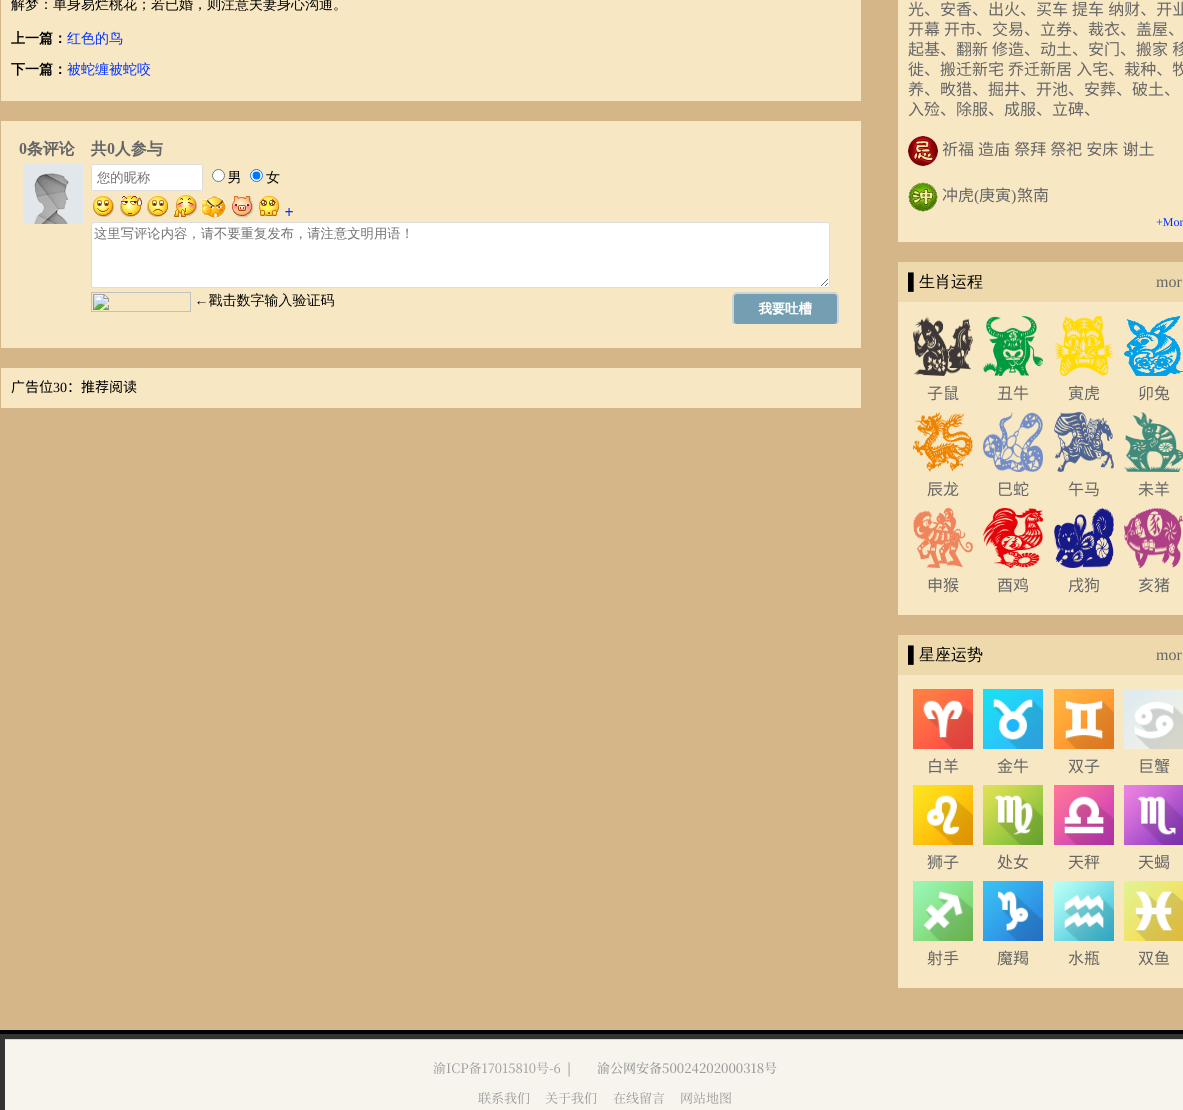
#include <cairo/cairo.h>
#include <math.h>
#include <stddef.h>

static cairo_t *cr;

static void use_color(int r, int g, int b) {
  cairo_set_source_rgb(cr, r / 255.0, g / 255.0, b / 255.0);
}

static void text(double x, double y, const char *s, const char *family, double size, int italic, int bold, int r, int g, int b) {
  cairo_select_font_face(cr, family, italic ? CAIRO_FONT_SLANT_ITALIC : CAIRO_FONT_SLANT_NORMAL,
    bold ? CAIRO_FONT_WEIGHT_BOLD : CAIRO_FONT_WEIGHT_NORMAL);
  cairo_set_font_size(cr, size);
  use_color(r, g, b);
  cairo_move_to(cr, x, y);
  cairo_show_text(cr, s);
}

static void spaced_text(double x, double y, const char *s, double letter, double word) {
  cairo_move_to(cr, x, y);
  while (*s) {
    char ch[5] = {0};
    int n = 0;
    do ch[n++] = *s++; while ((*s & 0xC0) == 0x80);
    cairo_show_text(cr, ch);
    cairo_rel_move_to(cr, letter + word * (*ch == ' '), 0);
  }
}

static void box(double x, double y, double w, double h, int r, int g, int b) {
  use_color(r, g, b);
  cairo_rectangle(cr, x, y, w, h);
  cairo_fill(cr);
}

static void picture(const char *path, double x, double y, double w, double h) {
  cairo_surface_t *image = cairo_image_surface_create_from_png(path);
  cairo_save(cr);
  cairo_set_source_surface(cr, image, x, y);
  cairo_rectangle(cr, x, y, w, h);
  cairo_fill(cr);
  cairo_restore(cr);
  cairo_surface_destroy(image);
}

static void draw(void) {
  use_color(212, 182, 137);
  cairo_paint(cr);
  box(1, 0, 860, 101, 247, 231, 195);
  box(1, 121, 860, 227, 247, 231, 195);
  picture("img_01.png", 19, 140, 820, 184);
  box(1, 368, 860, 40, 247, 231, 195);
  box(898, 0, 285, 242, 247, 231, 195);
  picture("img_02.png", 908, 136, 30, 30);
  picture("img_03.png", 908, 182, 30, 30);
  box(898, 262, 285, 40, 237, 217, 171);
  box(898, 302, 285, 313, 247, 231, 195);
  picture("img_04.png", 913, 316, 60, 60);
  picture("img_05.png", 983, 316, 60, 60);
  picture("img_06.png", 1054, 316, 60, 60);
  picture("img_07.png", 1124, 316, 59, 60);
  picture("img_08.png", 913, 412, 60, 60);
  picture("img_09.png", 983, 412, 60, 60);
  picture("img_10.png", 1054, 412, 60, 60);
  picture("img_11.png", 1124, 412, 59, 60);
  picture("img_12.png", 913, 508, 60, 60);
  picture("img_13.png", 983, 508, 60, 60);
  picture("img_14.png", 1054, 508, 60, 60);
  picture("img_15.png", 1124, 508, 59, 60);
  box(898, 635, 285, 40, 237, 217, 171);
  box(898, 675, 285, 313, 247, 231, 195);
  picture("img_16.png", 913, 689, 60, 60);
  picture("img_17.png", 983, 689, 60, 60);
  picture("img_18.png", 1054, 689, 60, 60);
  picture("img_19.png", 1124, 689, 59, 60);
  picture("img_20.png", 913, 785, 60, 60);
  picture("img_21.png", 983, 785, 60, 60);
  picture("img_22.png", 1054, 785, 60, 60);
  picture("img_23.png", 1124, 785, 59, 60);
  picture("img_24.png", 913, 881, 60, 60);
  picture("img_25.png", 983, 881, 60, 60);
  picture("img_26.png", 1054, 881, 60, 60);
  picture("img_27.png", 1124, 881, 59, 60);
  box(0, 1034, 1183, 76, 51, 51, 51);
  box(0, 1030, 1183, 4, 0, 0, 0);
  box(5, 1040, 1178, 70, 247, 243, 237);
  box(5, 1039, 1178, 1, 224, 212, 195);
  text(11, 9, "解梦：单身易烂桃花；若已婚，则注意夫妻身心沟通。", "WenQuanYi Zen Hei Medium", 14, 0, 0, 0, 0, 0);
  text(11, 43, "上一篇：", "WenQuanYi Zen Hei", 14, 0, 1, 0, 0, 0);
  text(67, 43, "红色的鸟", "WenQuanYi Zen Hei Medium", 14, 0, 0, 0, 51, 255);
  text(11, 74, "下一篇：", "WenQuanYi Zen Hei", 14, 0, 1, 0, 0, 0);
  text(67, 74, "被蛇缠被蛇咬", "WenQuanYi Zen Hei Medium", 14, 0, 0, 0, 51, 255);
  text(11, 392, "广告位", "Noto Sans CJK SC", 14, 0, 0, 0, 0, 0);
  text(53, 392, "30", "Liberation Serif", 14, 0, 0, 0, 0, 0);
  text(67, 392, "：推荐阅读", "Noto Sans CJK SC", 14, 0, 0, 0, 0, 0);
  cairo_set_font_size(cr, 16);
  use_color(102, 102, 102);
  spaced_text(908, 15, "光、安香、出火、买车 提车 纳财、开业", 0, 0.5);
  spaced_text(908, 35, "开幕 开市、交易、立券、裁衣、盖屋、", 0, 0.5);
  spaced_text(908, 55, "起基、翻新 修造、动土、安门、搬家 移", 0, 0.5);
  spaced_text(908, 75, "徙、搬迁新宅 乔迁新居 入宅、栽种、牧", 0, 0.5);
  text(908, 95, "养、畋猎、掘井、开池、安葬、破土、", "Noto Sans CJK SC", 16, 0, 0, 102, 102, 102);
  text(908, 115, "入殓、除服、成服、立碑、", "Noto Sans CJK SC", 16, 0, 0, 102, 102, 102);
  spaced_text(942, 155, "祈福 造庙 祭拜 祭祀 安床 谢土", 0, 0.5);
  text(942, 201, "冲虎", "Noto Sans CJK SC", 16, 0, 0, 102, 102, 102);
  text(974, 201, "(", "Liberation Serif", 16, 0, 0, 102, 102, 102);
  text(979, 201, "庚寅", "Noto Sans CJK SC", 16, 0, 0, 102, 102, 102);
  text(1011, 201, ")", "Liberation Serif", 16, 0, 0, 102, 102, 102);
  text(1017, 201, "煞南", "Noto Sans CJK SC", 16, 0, 0, 102, 102, 102);
  text(1156, 226, "+Mor", "Liberation Serif", 12, 0, 0, 0, 51, 255);
  text(908, 287, "▌", "Liberation Serif", 16, 0, 0, 0, 0, 0);
  text(919, 287, "生肖运程", "WenQuanYi Zen Hei Medium", 16, 0, 0, 0, 0, 0);
  text(1156, 287, "mor", "Liberation Serif", 16, 0, 0, 102, 102, 102);
  text(927, 399, "子鼠", "Noto Sans CJK SC", 16, 0, 0, 102, 102, 102);
  text(997, 399, "丑牛", "Noto Sans CJK SC", 16, 0, 0, 102, 102, 102);
  text(1068, 399, "寅虎", "Noto Sans CJK SC", 16, 0, 0, 102, 102, 102);
  text(1138, 399, "卯兔", "Noto Sans CJK SC", 16, 0, 0, 102, 102, 102);
  text(927, 495, "辰龙", "Noto Sans CJK SC", 16, 0, 0, 102, 102, 102);
  text(997, 495, "巳蛇", "Noto Sans CJK SC", 16, 0, 0, 102, 102, 102);
  text(1068, 495, "午马", "Noto Sans CJK SC", 16, 0, 0, 102, 102, 102);
  text(1138, 495, "未羊", "Noto Sans CJK SC", 16, 0, 0, 102, 102, 102);
  text(927, 591, "申猴", "Noto Sans CJK SC", 16, 0, 0, 102, 102, 102);
  text(997, 591, "酉鸡", "Noto Sans CJK SC", 16, 0, 0, 102, 102, 102);
  text(1068, 591, "戌狗", "Noto Sans CJK SC", 16, 0, 0, 102, 102, 102);
  text(1138, 591, "亥猪", "Noto Sans CJK SC", 16, 0, 0, 102, 102, 102);
  text(908, 660, "▌", "Liberation Serif", 16, 0, 0, 0, 0, 0);
  text(919, 660, "星座运势", "WenQuanYi Zen Hei Medium", 16, 0, 0, 0, 0, 0);
  text(1156, 660, "mor", "Liberation Serif", 16, 0, 0, 102, 102, 102);
  text(927, 772, "白羊", "Noto Sans CJK SC", 16, 0, 0, 102, 102, 102);
  text(997, 772, "金牛", "Noto Sans CJK SC", 16, 0, 0, 102, 102, 102);
  text(1068, 772, "双子", "Noto Sans CJK SC", 16, 0, 0, 102, 102, 102);
  text(1138, 772, "巨蟹", "Noto Sans CJK SC", 16, 0, 0, 102, 102, 102);
  text(927, 868, "狮子", "Noto Sans CJK SC", 16, 0, 0, 102, 102, 102);
  text(997, 868, "处女", "Noto Sans CJK SC", 16, 0, 0, 102, 102, 102);
  text(1068, 868, "天秤", "Noto Sans CJK SC", 16, 0, 0, 102, 102, 102);
  text(1138, 868, "天蝎", "Noto Sans CJK SC", 16, 0, 0, 102, 102, 102);
  text(927, 964, "射手", "Noto Sans CJK SC", 16, 0, 0, 102, 102, 102);
  text(997, 964, "魔羯", "Noto Sans CJK SC", 16, 0, 0, 102, 102, 102);
  text(1068, 964, "水瓶", "Noto Sans CJK SC", 16, 0, 0, 102, 102, 102);
  text(1138, 964, "双鱼", "Noto Sans CJK SC", 16, 0, 0, 102, 102, 102);
  text(433, 1073, "渝ICP备17015810号-6", "Noto Serif SC", 13, 0, 0, 153, 153, 153);
  text(567, 1073, "|", "Noto Serif SC", 13, 0, 0, 138, 109, 74);
  text(597, 1073, "渝公网安备50024202000318号", "Noto Serif SC Medium", 13, 0, 0, 153, 153, 153);
  text(478, 1103, "联系我们", "Noto Serif SC", 13, 0, 0, 153, 153, 153);
  text(545, 1103, "关于我们", "Noto Serif SC", 13, 0, 0, 153, 153, 153);
  text(613, 1103, "在线留言", "Noto Serif SC", 13, 0, 0, 153, 153, 153);
  text(680, 1103, "网站地图", "Noto Serif SC", 13, 0, 0, 153, 153, 153);
}

int main(void) {
  cairo_surface_t *surface = cairo_image_surface_create(CAIRO_FORMAT_RGB24, 1183, 1110);
  cr = cairo_create(surface);
  cairo_font_options_t *options = cairo_font_options_create();
  cairo_font_options_set_hint_metrics(options, CAIRO_HINT_METRICS_OFF);
  cairo_font_options_set_hint_style(options, CAIRO_HINT_STYLE_NONE);
  cairo_set_font_options(cr, options);
  cairo_set_miter_limit(cr, 4);
  draw();
  cairo_surface_write_to_png(surface, "out.png");
  cairo_font_options_destroy(options);
  cairo_destroy(cr);
  cairo_surface_destroy(surface);
  return 0;
}
